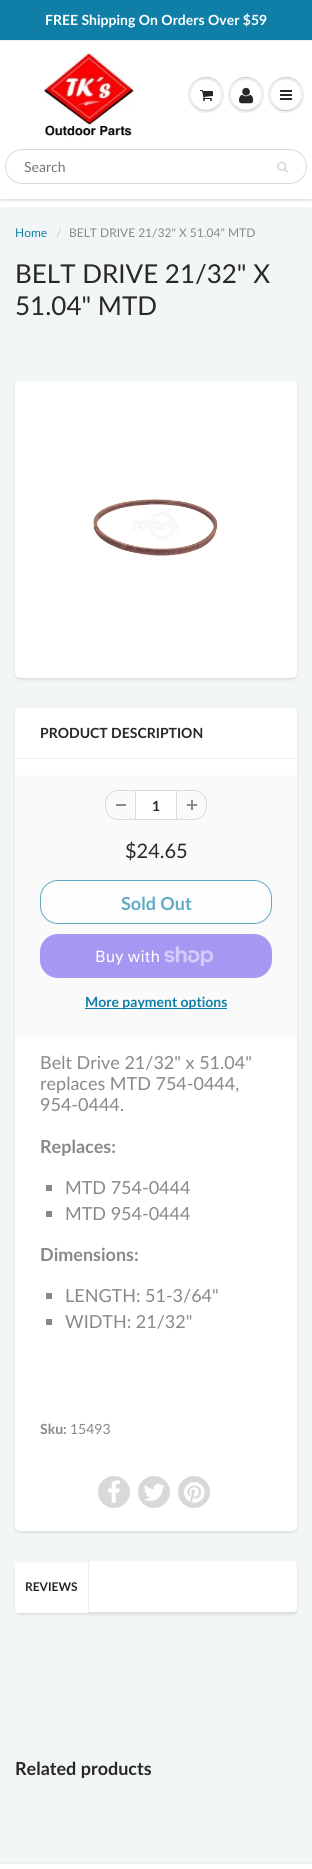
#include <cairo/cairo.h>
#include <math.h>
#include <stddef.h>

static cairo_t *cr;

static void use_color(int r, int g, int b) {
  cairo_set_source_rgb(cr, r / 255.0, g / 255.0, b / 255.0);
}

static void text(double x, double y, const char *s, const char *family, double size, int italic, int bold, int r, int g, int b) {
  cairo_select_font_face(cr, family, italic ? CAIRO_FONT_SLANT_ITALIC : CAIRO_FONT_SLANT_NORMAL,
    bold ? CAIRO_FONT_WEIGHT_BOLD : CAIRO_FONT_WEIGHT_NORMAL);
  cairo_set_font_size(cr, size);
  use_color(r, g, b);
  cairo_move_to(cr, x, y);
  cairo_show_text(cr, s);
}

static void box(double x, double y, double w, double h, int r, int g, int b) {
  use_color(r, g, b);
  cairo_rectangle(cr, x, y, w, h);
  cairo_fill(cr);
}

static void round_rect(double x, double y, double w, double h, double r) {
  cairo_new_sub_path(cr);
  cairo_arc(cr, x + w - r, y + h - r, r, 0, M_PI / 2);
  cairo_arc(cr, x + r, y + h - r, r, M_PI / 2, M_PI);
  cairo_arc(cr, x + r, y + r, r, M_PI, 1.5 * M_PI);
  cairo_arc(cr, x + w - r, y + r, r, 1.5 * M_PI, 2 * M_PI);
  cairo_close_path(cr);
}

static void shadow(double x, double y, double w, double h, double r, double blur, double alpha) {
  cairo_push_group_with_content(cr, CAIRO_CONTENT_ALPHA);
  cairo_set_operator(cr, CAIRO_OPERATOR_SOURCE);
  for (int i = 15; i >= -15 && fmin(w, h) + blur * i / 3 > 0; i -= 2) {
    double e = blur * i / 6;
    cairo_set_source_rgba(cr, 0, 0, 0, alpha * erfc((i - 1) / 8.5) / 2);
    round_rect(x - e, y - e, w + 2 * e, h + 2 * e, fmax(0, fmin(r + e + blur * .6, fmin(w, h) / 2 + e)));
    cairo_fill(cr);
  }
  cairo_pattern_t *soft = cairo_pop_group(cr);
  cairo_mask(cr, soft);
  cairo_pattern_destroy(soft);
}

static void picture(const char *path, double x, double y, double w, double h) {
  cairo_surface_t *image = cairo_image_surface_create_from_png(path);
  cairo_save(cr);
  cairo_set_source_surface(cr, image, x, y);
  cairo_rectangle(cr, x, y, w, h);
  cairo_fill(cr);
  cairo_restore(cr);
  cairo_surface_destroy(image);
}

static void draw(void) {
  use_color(255, 255, 255);
  cairo_paint(cr);
  box(0, 0, 312, 40, 16, 127, 168);
  cairo_save(cr);
  cairo_rectangle(cr, 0, 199, 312, 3);
  cairo_clip(cr);
  use_color(11, 25, 28);
  shadow(0, 42, 312, 159, 0, 1, 0.12);
  cairo_restore(cr);
  box(0, 40, 312, 1, 236, 239, 239);
  picture("img_01.png", 43, 52, 91, 85);
  use_color(237, 239, 239);
  cairo_arc(cr, 206, 95, 18, 0, 2 * M_PI);
  cairo_fill(cr);
  use_color(201, 203, 203);
  cairo_new_path(cr);
  cairo_move_to(cr, 206, 78);
  cairo_curve_to(cr, 218, 78, 224, 86.5, 224, 95.5);
  cairo_curve_to(cr, 224, 92, 223, 88, 221, 85);
  cairo_curve_to(cr, 211, 70, 187.5, 77.5, 188, 95.5);
  cairo_curve_to(cr, 188, 86.5, 194, 78, 206, 78);
  cairo_close_path(cr);
  cairo_fill(cr);
  cairo_new_path(cr);
  cairo_move_to(cr, 191, 95.5);
  cairo_curve_to(cr, 190.5, 110.5, 210, 117, 218.5, 104.5);
  cairo_curve_to(cr, 220, 102, 221, 98.5, 221, 95.5);
  cairo_curve_to(cr, 220.5, 114.5, 191.5, 114.5, 191, 95.5);
  cairo_close_path(cr);
  cairo_fill(cr);
  use_color(255, 255, 255);
  cairo_arc(cr, 206, 95, 15, 0, 2 * M_PI);
  cairo_fill(cr);
  cairo_new_path(cr);
  cairo_move_to(cr, 206, 81);
  cairo_curve_to(cr, 216, 81, 221, 88, 221, 95.5);
  cairo_curve_to(cr, 221, 92.5, 220, 89, 218.5, 86.5);
  cairo_curve_to(cr, 210, 74, 190.5, 80.5, 191, 95.5);
  cairo_curve_to(cr, 191, 88, 196, 81, 206, 81);
  cairo_close_path(cr);
  cairo_fill(cr);
  picture("img_02.png", 200, 90, 13, 11);
  use_color(237, 239, 239);
  cairo_arc(cr, 246, 95, 18, 0, 2 * M_PI);
  cairo_fill(cr);
  use_color(201, 203, 203);
  cairo_new_path(cr);
  cairo_move_to(cr, 246, 78);
  cairo_curve_to(cr, 258, 78, 264, 86.5, 264, 95.5);
  cairo_curve_to(cr, 264.5, 77.5, 241, 70, 231, 85);
  cairo_curve_to(cr, 229, 88, 228, 92, 228, 95.5);
  cairo_curve_to(cr, 228, 86.5, 234, 78, 246, 78);
  cairo_close_path(cr);
  cairo_fill(cr);
  cairo_new_path(cr);
  cairo_move_to(cr, 231, 95.5);
  cairo_curve_to(cr, 230.5, 110.5, 250, 117, 258.5, 104.5);
  cairo_curve_to(cr, 260, 102, 261, 98.5, 261, 95.5);
  cairo_curve_to(cr, 260.5, 114.5, 231.5, 114.5, 231, 95.5);
  cairo_close_path(cr);
  cairo_fill(cr);
  use_color(255, 255, 255);
  cairo_arc(cr, 246, 95, 15, 0, 2 * M_PI);
  cairo_fill(cr);
  cairo_new_path(cr);
  cairo_move_to(cr, 246, 81);
  cairo_curve_to(cr, 256, 81, 261, 88, 261, 95.5);
  cairo_curve_to(cr, 261, 92.5, 260, 89, 258.5, 86.5);
  cairo_curve_to(cr, 250, 74, 230.5, 80.5, 231, 95.5);
  cairo_curve_to(cr, 231, 88, 236, 81, 246, 81);
  cairo_close_path(cr);
  cairo_fill(cr);
  picture("img_03.png", 239, 87, 15, 17);
  use_color(237, 239, 239);
  cairo_arc(cr, 286, 95, 18, 0, 2 * M_PI);
  cairo_fill(cr);
  use_color(201, 203, 203);
  cairo_new_path(cr);
  cairo_move_to(cr, 286, 78);
  cairo_curve_to(cr, 298, 78, 304, 86.5, 304, 95.5);
  cairo_curve_to(cr, 304, 92, 303, 88, 301, 85);
  cairo_curve_to(cr, 291, 70, 267.5, 77.5, 268, 95.5);
  cairo_curve_to(cr, 268, 86.5, 274, 78, 286, 78);
  cairo_close_path(cr);
  cairo_fill(cr);
  cairo_new_path(cr);
  cairo_move_to(cr, 271, 95.5);
  cairo_curve_to(cr, 271, 98.5, 272, 102, 273.5, 104.5);
  cairo_curve_to(cr, 282, 117, 301.5, 110.5, 301, 95.5);
  cairo_curve_to(cr, 300.5, 114.5, 271.5, 114.5, 271, 95.5);
  cairo_close_path(cr);
  cairo_fill(cr);
  use_color(255, 255, 255);
  cairo_arc(cr, 286, 95, 15, 0, 2 * M_PI);
  cairo_fill(cr);
  cairo_new_path(cr);
  cairo_move_to(cr, 286, 81);
  cairo_curve_to(cr, 296, 81, 301, 88, 301, 95.5);
  cairo_curve_to(cr, 301, 92.5, 300, 89, 298.5, 86.5);
  cairo_curve_to(cr, 290, 74, 270.5, 80.5, 271, 95.5);
  cairo_curve_to(cr, 271, 88, 276, 81, 286, 81);
  cairo_close_path(cr);
  cairo_fill(cr);
  picture("img_04.png", 280, 90, 12, 10);
  round_rect(5.5, 149.5, 301, 34, 17);
  use_color(215, 219, 219);
  cairo_set_line_width(cr, 1);
  cairo_stroke(cr);
  picture("img_05.png", 277, 161, 11, 12);
  box(0, 207, 312, 1656, 243, 246, 246);
  use_color(11, 25, 28);
  shadow(15, 383, 282, 297, 5, 1, 0.1);
  use_color(255, 255, 255);
  round_rect(15, 381, 282, 297, 5);
  cairo_fill(cr);
  picture("img_06.png", 93, 499, 125, 57);
  use_color(11, 25, 28);
  shadow(15, 710, 282, 823, 5, 1, 0.1);
  use_color(255, 255, 255);
  round_rect(15, 708, 282, 823, 5);
  cairo_fill(cr);
  box(15, 758, 282, 1, 239, 239, 239);
  box(15, 775, 282, 262, 250, 250, 250);
  box(116, 804, 10, 2, 137, 137, 137);
  use_color(215, 219, 219);
  cairo_set_fill_rule(cr, CAIRO_FILL_RULE_EVEN_ODD);
  cairo_new_path(cr);
  cairo_move_to(cr, 118, 790);
  cairo_line_to(cr, 135, 790);
  cairo_line_to(cr, 135, 820);
  cairo_line_to(cr, 118, 820);
  cairo_curve_to(cr, 111, 820, 105, 814, 105, 807);
  cairo_line_to(cr, 105, 803);
  cairo_curve_to(cr, 105, 796, 111, 790, 118, 790);
  cairo_close_path(cr);
  cairo_move_to(cr, 118, 791);
  cairo_line_to(cr, 135, 791);
  cairo_line_to(cr, 135, 819);
  cairo_line_to(cr, 118, 819);
  cairo_curve_to(cr, 111.5, 819, 106, 813.5, 106, 807);
  cairo_line_to(cr, 106, 803);
  cairo_curve_to(cr, 106, 796.5, 111.5, 791, 118, 791);
  cairo_close_path(cr);
  cairo_fill(cr);
  use_color(255, 255, 255);
  cairo_rectangle(cr, 135.5, 790.5, 41, 29);
  cairo_fill_preserve(cr);
  use_color(215, 219, 219);
  cairo_stroke(cr);
  picture("img_07.png", 187, 800, 10, 10);
  cairo_new_path(cr);
  cairo_move_to(cr, 177, 790);
  cairo_line_to(cr, 194, 790);
  cairo_curve_to(cr, 201, 790, 207, 796, 207, 803);
  cairo_line_to(cr, 207, 807);
  cairo_curve_to(cr, 207, 814, 201, 820, 194, 820);
  cairo_line_to(cr, 177, 820);
  cairo_close_path(cr);
  cairo_move_to(cr, 177, 791);
  cairo_line_to(cr, 194, 791);
  cairo_curve_to(cr, 200.5, 791, 206, 796.5, 206, 803);
  cairo_line_to(cr, 206, 807);
  cairo_curve_to(cr, 206, 813.5, 200.5, 819, 194, 819);
  cairo_line_to(cr, 177, 819);
  cairo_close_path(cr);
  cairo_fill(cr);
  use_color(253, 253, 253);
  round_rect(40.5, 880.5, 231, 43, 17.5);
  cairo_fill_preserve(cr);
  use_color(98, 170, 197);
  cairo_stroke(cr);
  use_color(167, 151, 243);
  round_rect(40, 934, 232, 44, 18);
  cairo_fill(cr);
  picture("img_08.png", 164, 946, 50, 20);
  box(85, 1008, 142, 1, 16, 127, 168);
  box(46, 1185, 6, 6, 137, 137, 137);
  box(46, 1211, 6, 6, 137, 137, 137);
  box(46, 1293, 6, 6, 137, 137, 137);
  box(46, 1319, 6, 6, 137, 137, 137);
  use_color(217, 217, 217);
  cairo_arc(cr, 114, 1492, 16, 0, 2 * M_PI);
  cairo_fill(cr);
  picture("img_09.png", 108, 1480, 12, 23);
  cairo_arc(cr, 154, 1492, 16, 0, 2 * M_PI);
  cairo_fill(cr);
  picture("img_10.png", 144, 1483, 21, 18);
  cairo_arc(cr, 194, 1492, 16, 0, 2 * M_PI);
  cairo_fill(cr);
  picture("img_11.png", 184, 1482, 21, 21);
  use_color(11, 25, 28);
  shadow(15, 1563, 282, 52, 5, 1, 0.1);
  use_color(255, 255, 255);
  round_rect(15, 1561, 282, 52, 5);
  cairo_fill(cr);
  box(89, 1612, 208, 1, 221, 221, 221);
  box(15, 1562, 4, 51, 255, 255, 255);
  box(15, 1561, 74, 1, 239, 239, 239);
  cairo_set_fill_rule(cr, CAIRO_FILL_RULE_WINDING);
  cairo_new_path(cr);
  cairo_move_to(cr, 89, 1561);
  cairo_line_to(cr, 89, 1613);
  cairo_line_to(cr, 88, 1612);
  cairo_line_to(cr, 88, 1562);
  cairo_close_path(cr);
  cairo_fill(cr);
  box(0, 1863, 312, 1, 236, 239, 239);
  text(45, 25, "FREE Shipping On Orders Over $59", "Lato", 14, 0, 1, 255, 255, 255);
  text(24, 172, "Search", "Lato", 14, 0, 0, 117, 117, 117);
  text(15, 237, "Home", "Lato", 12, 0, 0, 16, 127, 168);
  text(56, 237, "/", "Lato", 12, 0, 0, 204, 204, 204);
  text(69, 237, "BELT DRIVE 21/32\" X 51.04\" MTD", "Lato", 12, 0, 0, 137, 137, 137);
  text(15, 283, "BELT DRIVE 21/32\" X", "Lato", 26, 0, 0, 40, 40, 39);
  text(15, 315, "51.04\" MTD", "Lato", 26, 0, 0, 40, 40, 39);
  text(40, 738, "PRODUCT DESCRIPTION", "Lato", 14, 0, 1, 40, 40, 39);
  text(152, 811, "1", "Lato", 14, 0, 1, 40, 40, 39);
  text(125, 858, "$24.65", "Lato", 20, 0, 0, 40, 40, 39);
  text(121, 910, "Sold Out", "Lato", 18, 0, 1, 98, 170, 197);
  text(95, 962, "Buy with", "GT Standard", 16, 0, 0, 255, 255, 255);
  text(85, 1007, "More payment options", "Lato", 14, 0, 1, 16, 127, 168);
  text(40, 1069, "Belt Drive 21/32\" x 51.04\"", "Lato", 18, 0, 0, 137, 137, 137);
  text(40, 1090, "replaces MTD 754-0444,", "Lato", 18, 0, 0, 137, 137, 137);
  text(40, 1111, "954-0444.", "Lato", 18, 0, 0, 137, 137, 137);
  text(40, 1153, "Replaces:", "Lato", 18, 0, 1, 137, 137, 137);
  text(65, 1194, "MTD 754-0444", "Lato", 18, 0, 0, 137, 137, 137);
  text(65, 1220, "MTD 954-0444", "Lato", 18, 0, 0, 137, 137, 137);
  text(40, 1261, "Dimensions:", "Lato", 18, 0, 1, 137, 137, 137);
  text(65, 1302, "LENGTH: 51-3/64\"", "Lato", 18, 0, 0, 137, 137, 137);
  text(65, 1328, "WIDTH: 21/32\"", "Lato", 18, 0, 0, 137, 137, 137);
  text(40, 1434, "Sku:", "Lato", 14, 0, 1, 137, 137, 137);
  text(70, 1434, "15493", "Lato", 14, 0, 0, 137, 137, 137);
  text(25, 1591, "REVIEWS", "Lato", 12, 0, 1, 40, 40, 39);
  text(15, 1775, "Related products", "Lato", 18, 0, 1, 40, 40, 39);
}

int main(void) {
  cairo_surface_t *surface = cairo_image_surface_create(CAIRO_FORMAT_RGB24, 312, 1869);
  cr = cairo_create(surface);
  cairo_font_options_t *options = cairo_font_options_create();
  cairo_font_options_set_hint_metrics(options, CAIRO_HINT_METRICS_OFF);
  cairo_font_options_set_hint_style(options, CAIRO_HINT_STYLE_NONE);
  cairo_set_font_options(cr, options);
  cairo_set_miter_limit(cr, 4);
  draw();
  cairo_surface_write_to_png(surface, "out.png");
  cairo_font_options_destroy(options);
  cairo_destroy(cr);
  cairo_surface_destroy(surface);
  return 0;
}
